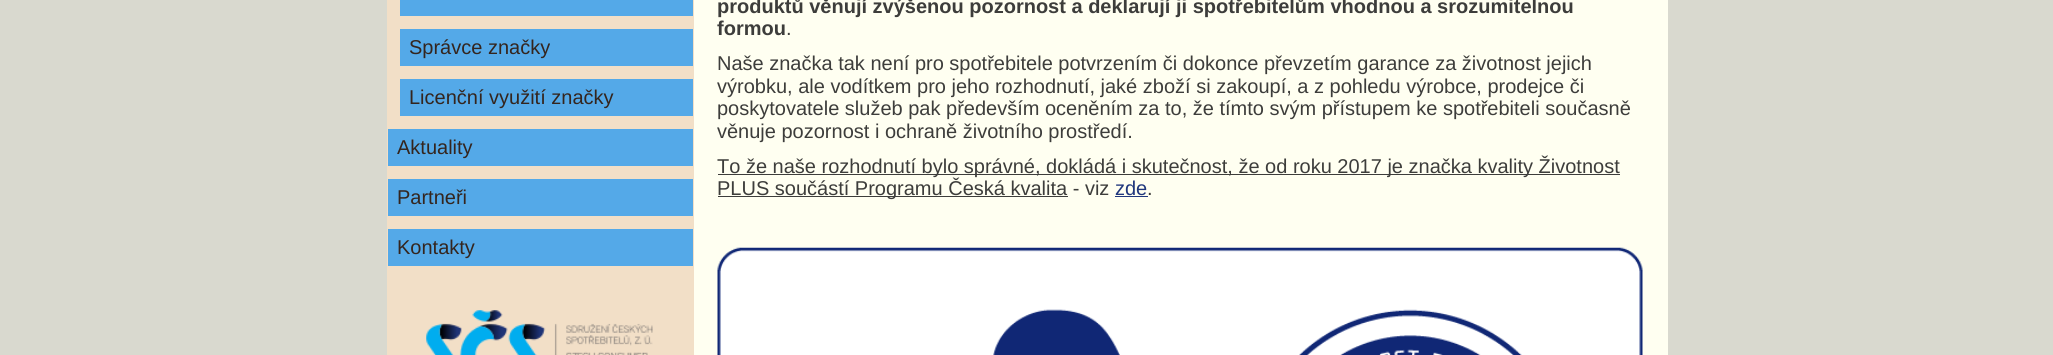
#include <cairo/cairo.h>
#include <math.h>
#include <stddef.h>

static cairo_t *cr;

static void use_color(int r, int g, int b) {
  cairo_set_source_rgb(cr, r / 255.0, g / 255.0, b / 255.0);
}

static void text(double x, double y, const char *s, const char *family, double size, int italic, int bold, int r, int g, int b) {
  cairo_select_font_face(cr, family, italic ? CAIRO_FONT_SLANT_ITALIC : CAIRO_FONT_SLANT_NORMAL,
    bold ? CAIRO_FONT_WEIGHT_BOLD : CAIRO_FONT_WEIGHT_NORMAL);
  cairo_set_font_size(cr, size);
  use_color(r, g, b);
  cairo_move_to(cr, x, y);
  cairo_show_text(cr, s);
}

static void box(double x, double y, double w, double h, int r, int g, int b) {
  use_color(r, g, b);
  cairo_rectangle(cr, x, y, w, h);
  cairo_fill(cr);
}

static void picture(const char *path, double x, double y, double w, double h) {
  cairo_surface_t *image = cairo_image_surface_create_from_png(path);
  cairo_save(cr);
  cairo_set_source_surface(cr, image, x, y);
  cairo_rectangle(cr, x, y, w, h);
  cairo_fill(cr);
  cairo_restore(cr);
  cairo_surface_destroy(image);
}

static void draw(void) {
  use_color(217, 217, 207);
  cairo_paint(cr);
  box(694, 0, 974, 355, 255, 255, 241);
  box(387, 0, 307, 355, 242, 223, 199);
  box(400, 0, 293, 16, 84, 169, 232);
  box(400, 29, 293, 37, 84, 169, 232);
  box(400, 79, 293, 37, 84, 169, 232);
  box(388, 129, 305, 37, 84, 169, 232);
  box(388, 179, 305, 37, 84, 169, 232);
  box(388, 229, 305, 37, 84, 169, 232);
  picture("img_01.png", 426, 310, 227, 45);
  box(718, 174, 902, 1, 61, 61, 59);
  box(718, 196, 350, 1, 61, 61, 59);
  box(1115, 196, 33, 1, 32, 55, 125);
  picture("img_02.png", 717, 247, 926, 108);
  text(409, 54, "Správce značky", "Liberation Sans", 20, 0, 0, 52, 37, 30);
  text(409, 104, "Licenční využití značky", "Liberation Sans", 20, 0, 0, 52, 37, 30);
  text(397, 154, "Aktuality", "Liberation Sans", 20, 0, 0, 52, 37, 30);
  text(397, 204, "Partneři", "Liberation Sans", 20, 0, 0, 52, 37, 30);
  text(397, 254, "Kontakty", "Liberation Sans", 20, 0, 0, 52, 37, 30);
  text(717, 13, "produktů věnují zvýšenou pozornost a deklarují ji spotřebitelům vhodnou a srozumitelnou", "Liberation Sans", 20, 0, 1, 61, 61, 59);
  text(717, 35, "formou", "Liberation Sans", 20, 0, 1, 61, 61, 59);
  text(786, 35, ".", "Liberation Sans", 20, 0, 0, 61, 61, 59);
  text(717, 70, "Naše značka tak není pro spotřebitele potvrzením či dokonce převzetím garance za životnost jejich", "Liberation Sans", 20, 0, 0, 61, 61, 59);
  text(717, 93, "výrobku, ale vodítkem pro jeho rozhodnutí, jaké zboží si zakoupí, a z pohledu výrobce, prodejce či", "Liberation Sans", 20, 0, 0, 61, 61, 59);
  text(717, 115, "poskytovatele služeb pak především oceněním za to, že tímto svým přístupem ke spotřebiteli současně", "Liberation Sans", 20, 0, 0, 61, 61, 59);
  text(717, 138, "věnuje pozornost i ochraně životního prostředí.", "Liberation Sans", 20, 0, 0, 61, 61, 59);
  text(717, 173, "To že naše rozhodnutí bylo správné, dokládá i skutečnost, že od roku 2017 je značka kvality Životnost", "Liberation Sans", 20, 0, 0, 61, 61, 59);
  text(717, 195, "PLUS součástí Programu Česká kvalita - viz", "Liberation Sans", 20, 0, 0, 61, 61, 59);
  text(1115, 195, "zde", "Liberation Sans", 20, 0, 0, 32, 55, 125);
  text(1147, 195, ".", "Liberation Sans", 20, 0, 0, 61, 61, 59);
}

int main(void) {
  cairo_surface_t *surface = cairo_image_surface_create(CAIRO_FORMAT_RGB24, 2053, 355);
  cr = cairo_create(surface);
  cairo_font_options_t *options = cairo_font_options_create();
  cairo_font_options_set_hint_metrics(options, CAIRO_HINT_METRICS_OFF);
  cairo_font_options_set_hint_style(options, CAIRO_HINT_STYLE_NONE);
  cairo_set_font_options(cr, options);
  cairo_set_miter_limit(cr, 4);
  draw();
  cairo_surface_write_to_png(surface, "out.png");
  cairo_font_options_destroy(options);
  cairo_destroy(cr);
  cairo_surface_destroy(surface);
  return 0;
}
